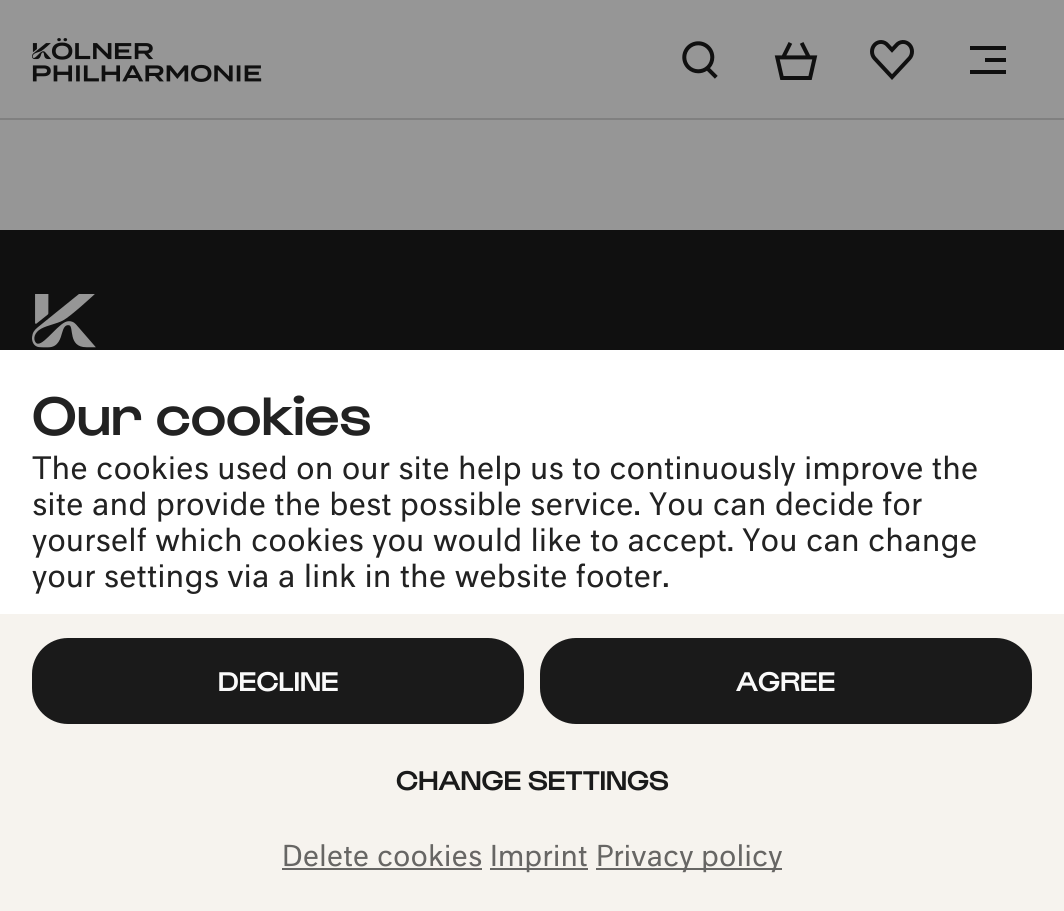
#include <cairo/cairo.h>
#include <math.h>
#include <stddef.h>

static cairo_t *cr;

static void use_color(int r, int g, int b) {
  cairo_set_source_rgb(cr, r / 255.0, g / 255.0, b / 255.0);
}

static void text(double x, double y, const char *s, const char *family, double size, int italic, int bold, int r, int g, int b) {
  cairo_select_font_face(cr, family, italic ? CAIRO_FONT_SLANT_ITALIC : CAIRO_FONT_SLANT_NORMAL,
    bold ? CAIRO_FONT_WEIGHT_BOLD : CAIRO_FONT_WEIGHT_NORMAL);
  cairo_set_font_size(cr, size);
  use_color(r, g, b);
  cairo_move_to(cr, x, y);
  cairo_show_text(cr, s);
}

static void box(double x, double y, double w, double h, int r, int g, int b) {
  use_color(r, g, b);
  cairo_rectangle(cr, x, y, w, h);
  cairo_fill(cr);
}

static void round_rect(double x, double y, double w, double h, double r) {
  cairo_new_sub_path(cr);
  cairo_arc(cr, x + w - r, y + h - r, r, 0, M_PI / 2);
  cairo_arc(cr, x + r, y + h - r, r, M_PI / 2, M_PI);
  cairo_arc(cr, x + r, y + r, r, M_PI, 1.5 * M_PI);
  cairo_arc(cr, x + w - r, y + r, r, 1.5 * M_PI, 2 * M_PI);
  cairo_close_path(cr);
}

static void picture(const char *path, double x, double y, double w, double h) {
  cairo_surface_t *image = cairo_image_surface_create_from_png(path);
  cairo_save(cr);
  cairo_set_source_surface(cr, image, x, y);
  cairo_rectangle(cr, x, y, w, h);
  cairo_fill(cr);
  cairo_restore(cr);
  cairo_surface_destroy(image);
}

static void draw(void) {
  use_color(150, 150, 150);
  cairo_paint(cr);
  box(0, 118, 1064, 2, 128, 128, 128);
  picture("img_01.png", 32, 38, 230, 44);
  picture("img_02.png", 682, 41, 36, 38);
  picture("img_03.png", 774, 42, 44, 38);
  picture("img_04.png", 870, 40, 44, 40);
  box(970, 70, 36, 4, 16, 16, 16);
  box(985, 58, 21, 4, 16, 16, 16);
  box(970, 46, 36, 4, 16, 16, 16);
  box(0, 230, 1064, 120, 16, 16, 16);
  picture("img_05.png", 32, 294, 64, 54);
  box(0, 614, 1064, 297, 246, 243, 238);
  box(0, 350, 1064, 264, 255, 255, 255);
  use_color(26, 26, 26);
  round_rect(33, 639, 490, 84, 35);
  cairo_fill_preserve(cr);
  cairo_stroke(cr);
  round_rect(541, 639, 490, 84, 35);
  cairo_fill_preserve(cr);
  cairo_stroke(cr);
  box(282, 868, 200, 2, 103, 102, 100);
  box(490, 868, 98, 2, 103, 102, 100);
  box(596, 868, 186, 2, 103, 102, 100);
  text(32, 435, "Our cookies", "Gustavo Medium", 56, 0, 0, 34, 34, 34);
  text(32, 479, "The cookies used on our site help us to continuously improve the", "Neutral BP", 30, 0, 0, 34, 34, 34);
  text(32, 515, "site and provide the best possible service. You can decide for", "Neutral BP", 30, 0, 0, 34, 34, 34);
  text(32, 551, "yourself which cookies you would like to accept. You can change", "Neutral BP", 30, 0, 0, 34, 34, 34);
  text(32, 587, "your settings via a link in the website footer.", "Neutral BP", 30, 0, 0, 34, 34, 34);
  text(218, 691, "DECLINE", "Gustavo Medium", 28, 0, 0, 250, 250, 250);
  text(736, 691, "AGREE", "Gustavo Medium", 28, 0, 0, 250, 250, 250);
  text(396, 790, "CHANGE SETTINGS", "Gustavo Medium", 28, 0, 0, 26, 26, 26);
  text(282, 866, "Delete cookies", "Neutral BP", 28, 0, 0, 103, 102, 100);
  text(490, 866, "Imprint", "Neutral BP", 28, 0, 0, 103, 102, 100);
  text(596, 866, "Privacy policy", "Neutral BP", 28, 0, 0, 103, 102, 100);
}

int main(void) {
  cairo_surface_t *surface = cairo_image_surface_create(CAIRO_FORMAT_RGB24, 1064, 911);
  cr = cairo_create(surface);
  cairo_font_options_t *options = cairo_font_options_create();
  cairo_font_options_set_hint_metrics(options, CAIRO_HINT_METRICS_OFF);
  cairo_font_options_set_hint_style(options, CAIRO_HINT_STYLE_NONE);
  cairo_set_font_options(cr, options);
  cairo_set_miter_limit(cr, 4);
  draw();
  cairo_surface_write_to_png(surface, "out.png");
  cairo_font_options_destroy(options);
  cairo_destroy(cr);
  cairo_surface_destroy(surface);
  return 0;
}
